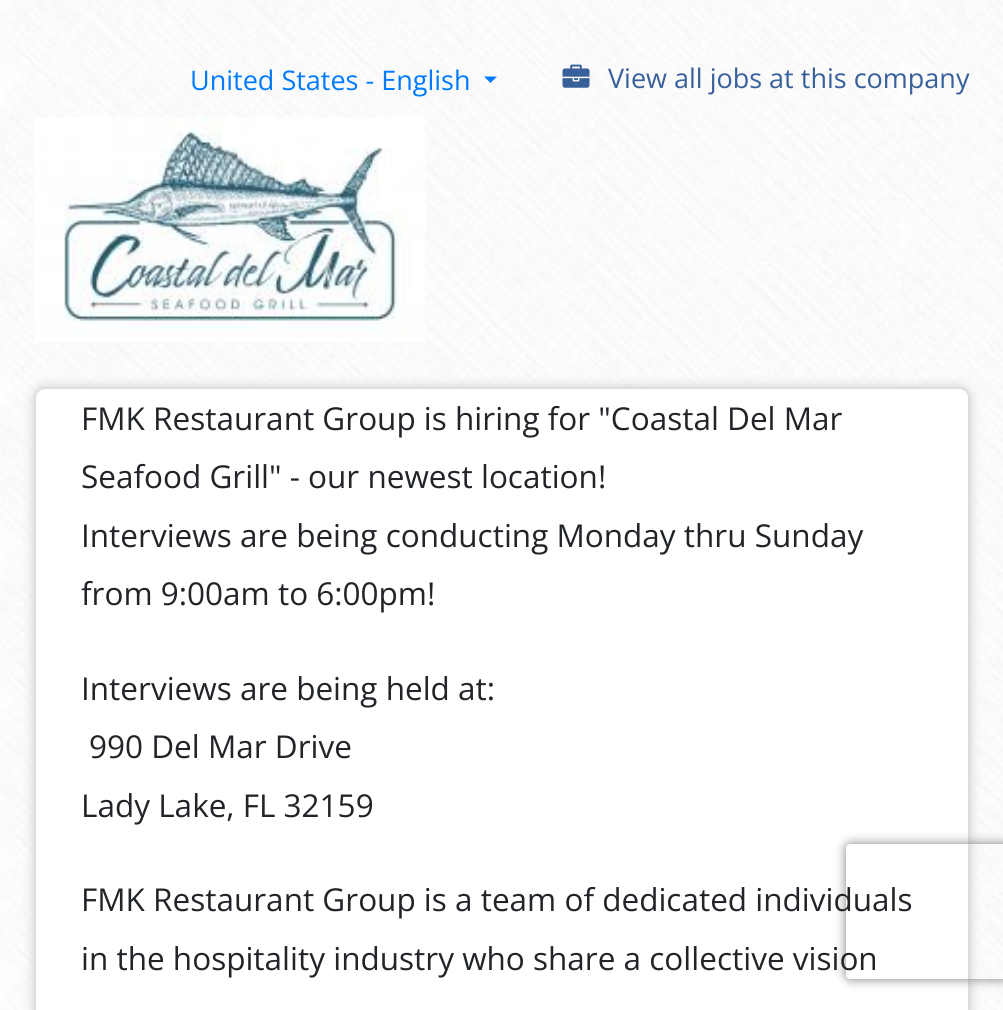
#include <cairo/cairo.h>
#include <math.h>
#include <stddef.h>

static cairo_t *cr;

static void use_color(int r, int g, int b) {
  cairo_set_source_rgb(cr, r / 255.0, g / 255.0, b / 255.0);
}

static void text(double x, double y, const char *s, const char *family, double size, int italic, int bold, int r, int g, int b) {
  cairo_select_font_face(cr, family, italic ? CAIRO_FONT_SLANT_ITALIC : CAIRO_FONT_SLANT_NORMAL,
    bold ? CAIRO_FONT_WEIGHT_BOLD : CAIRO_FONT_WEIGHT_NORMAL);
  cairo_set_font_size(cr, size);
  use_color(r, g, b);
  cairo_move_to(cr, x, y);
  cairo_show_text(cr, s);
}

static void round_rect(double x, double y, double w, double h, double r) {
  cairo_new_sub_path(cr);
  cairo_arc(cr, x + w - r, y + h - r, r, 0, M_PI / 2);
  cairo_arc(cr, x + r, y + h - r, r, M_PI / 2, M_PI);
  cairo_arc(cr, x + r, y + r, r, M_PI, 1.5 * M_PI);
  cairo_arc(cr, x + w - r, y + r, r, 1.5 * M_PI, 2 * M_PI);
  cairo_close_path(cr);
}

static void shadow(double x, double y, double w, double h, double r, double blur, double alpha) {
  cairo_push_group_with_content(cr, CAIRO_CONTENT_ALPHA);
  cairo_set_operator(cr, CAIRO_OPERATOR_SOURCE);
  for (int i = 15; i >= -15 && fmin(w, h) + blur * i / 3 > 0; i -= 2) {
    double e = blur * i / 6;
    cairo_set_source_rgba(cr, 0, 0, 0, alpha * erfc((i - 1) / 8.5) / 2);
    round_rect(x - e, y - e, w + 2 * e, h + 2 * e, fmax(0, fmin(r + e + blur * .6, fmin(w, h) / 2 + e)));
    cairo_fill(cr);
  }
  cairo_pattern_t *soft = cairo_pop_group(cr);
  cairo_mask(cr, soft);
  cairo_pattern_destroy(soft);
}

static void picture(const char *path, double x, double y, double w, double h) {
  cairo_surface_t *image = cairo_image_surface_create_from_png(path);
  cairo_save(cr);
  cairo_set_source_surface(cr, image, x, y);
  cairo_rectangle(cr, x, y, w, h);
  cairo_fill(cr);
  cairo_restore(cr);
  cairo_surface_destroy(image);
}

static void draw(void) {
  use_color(255, 255, 255);
  cairo_paint(cr);
  picture("img_01.png", 0, 0, 1003, 1010);
  use_color(0, 123, 255);
  cairo_new_path(cr);
  cairo_move_to(cr, 484, 76.5);
  cairo_line_to(cr, 497, 76.5);
  cairo_line_to(cr, 490.5, 83);
  cairo_close_path(cr);
  cairo_fill(cr);
  picture("img_02.png", 562, 64, 28, 24);
  picture("img_03.png", 34, 117, 391, 225);
  use_color(204, 204, 204);
  shadow(34, 387, 936, 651, 11, 5.5, 1);
  use_color(255, 255, 255);
  round_rect(35, 388, 934, 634, 10);
  cairo_fill_preserve(cr);
  use_color(221, 221, 221);
  cairo_stroke(cr);
  cairo_save(cr);
  cairo_set_fill_rule(cr, CAIRO_FILL_RULE_EVEN_ODD);
  cairo_new_path(cr);
  cairo_move_to(cr, 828, 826);
  cairo_line_to(cr, 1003, 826);
  cairo_line_to(cr, 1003, 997);
  cairo_line_to(cr, 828, 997);
  cairo_close_path(cr);
  cairo_move_to(cr, 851, 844);
  cairo_line_to(cr, 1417, 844);
  cairo_curve_to(cr, 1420, 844, 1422, 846, 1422, 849);
  cairo_line_to(cr, 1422, 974);
  cairo_curve_to(cr, 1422, 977, 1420, 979, 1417, 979);
  cairo_line_to(cr, 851, 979);
  cairo_curve_to(cr, 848, 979, 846, 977, 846, 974);
  cairo_line_to(cr, 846, 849);
  cairo_curve_to(cr, 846, 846, 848, 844, 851, 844);
  cairo_close_path(cr);
  cairo_clip(cr);
  use_color(128, 128, 128);
  shadow(846, 844, 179, 135, 5, 5.5, 1);
  cairo_restore(cr);
  text(190, 90, "United States - English", "Open Sans", 27, 0, 0, 0, 123, 255);
  text(608, 88, "View all jobs at this company", "Open Sans", 27, 0, 0, 56, 96, 155);
  text(81, 430, "FMK Restaurant Group is hiring for \"Coastal Del Mar", "Open Sans", 31.5, 0, 0, 33, 37, 41);
  text(81, 488, "Seafood Grill\" - our newest location!", "Open Sans", 31.5, 0, 0, 33, 37, 41);
  text(81, 547, "Interviews are being conducting Monday thru Sunday", "Open Sans", 31.5, 0, 0, 33, 37, 41);
  text(81, 605, "from 9:00am to 6:00pm!", "Open Sans", 31.5, 0, 0, 33, 37, 41);
  text(81, 700, "Interviews are being held at:", "Open Sans", 31.5, 0, 0, 33, 37, 41);
  text(89, 758, "990 Del Mar Drive", "Open Sans", 31.5, 0, 0, 33, 37, 41);
  text(81, 817, "Lady Lake, FL 32159", "Open Sans", 31.5, 0, 0, 33, 37, 41);
  text(81, 911, "FMK Restaurant Group is a team of dedicated individuals", "Open Sans", 31.5, 0, 0, 33, 37, 41);
  text(81, 970, "in the hospitality industry who share a collective vision", "Open Sans", 31.5, 0, 0, 33, 37, 41);
}

int main(void) {
  cairo_surface_t *surface = cairo_image_surface_create(CAIRO_FORMAT_RGB24, 1003, 1010);
  cr = cairo_create(surface);
  cairo_font_options_t *options = cairo_font_options_create();
  cairo_font_options_set_hint_metrics(options, CAIRO_HINT_METRICS_OFF);
  cairo_font_options_set_hint_style(options, CAIRO_HINT_STYLE_NONE);
  cairo_set_font_options(cr, options);
  cairo_set_miter_limit(cr, 4);
  draw();
  cairo_surface_write_to_png(surface, "out.png");
  cairo_font_options_destroy(options);
  cairo_destroy(cr);
  cairo_surface_destroy(surface);
  return 0;
}
